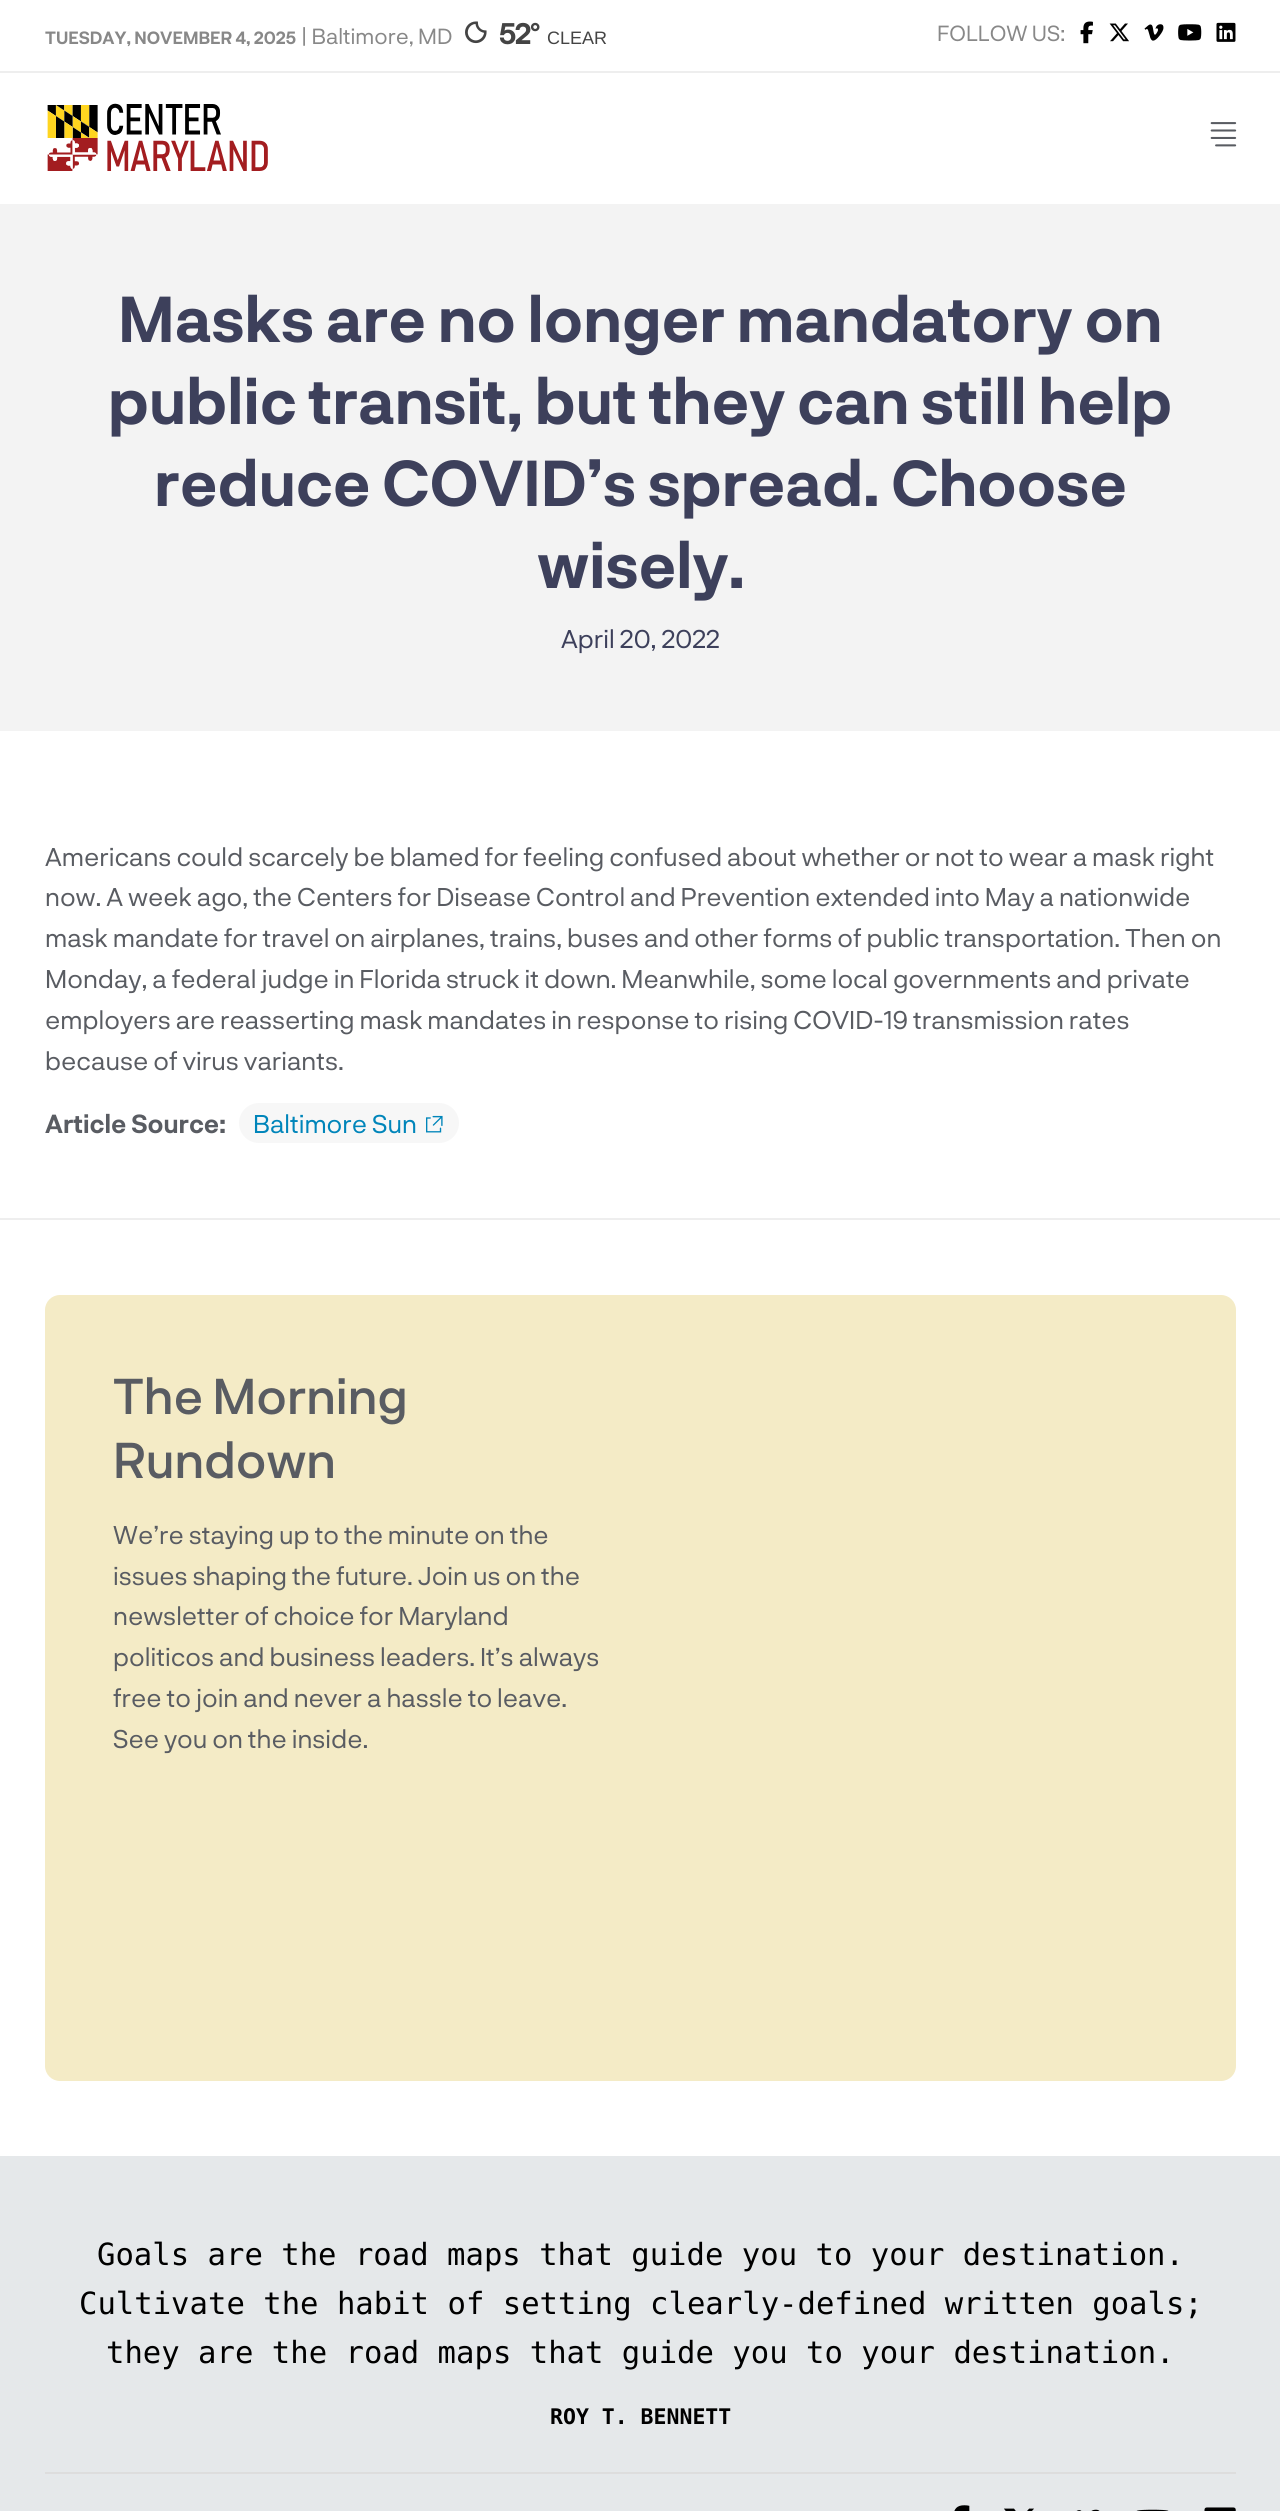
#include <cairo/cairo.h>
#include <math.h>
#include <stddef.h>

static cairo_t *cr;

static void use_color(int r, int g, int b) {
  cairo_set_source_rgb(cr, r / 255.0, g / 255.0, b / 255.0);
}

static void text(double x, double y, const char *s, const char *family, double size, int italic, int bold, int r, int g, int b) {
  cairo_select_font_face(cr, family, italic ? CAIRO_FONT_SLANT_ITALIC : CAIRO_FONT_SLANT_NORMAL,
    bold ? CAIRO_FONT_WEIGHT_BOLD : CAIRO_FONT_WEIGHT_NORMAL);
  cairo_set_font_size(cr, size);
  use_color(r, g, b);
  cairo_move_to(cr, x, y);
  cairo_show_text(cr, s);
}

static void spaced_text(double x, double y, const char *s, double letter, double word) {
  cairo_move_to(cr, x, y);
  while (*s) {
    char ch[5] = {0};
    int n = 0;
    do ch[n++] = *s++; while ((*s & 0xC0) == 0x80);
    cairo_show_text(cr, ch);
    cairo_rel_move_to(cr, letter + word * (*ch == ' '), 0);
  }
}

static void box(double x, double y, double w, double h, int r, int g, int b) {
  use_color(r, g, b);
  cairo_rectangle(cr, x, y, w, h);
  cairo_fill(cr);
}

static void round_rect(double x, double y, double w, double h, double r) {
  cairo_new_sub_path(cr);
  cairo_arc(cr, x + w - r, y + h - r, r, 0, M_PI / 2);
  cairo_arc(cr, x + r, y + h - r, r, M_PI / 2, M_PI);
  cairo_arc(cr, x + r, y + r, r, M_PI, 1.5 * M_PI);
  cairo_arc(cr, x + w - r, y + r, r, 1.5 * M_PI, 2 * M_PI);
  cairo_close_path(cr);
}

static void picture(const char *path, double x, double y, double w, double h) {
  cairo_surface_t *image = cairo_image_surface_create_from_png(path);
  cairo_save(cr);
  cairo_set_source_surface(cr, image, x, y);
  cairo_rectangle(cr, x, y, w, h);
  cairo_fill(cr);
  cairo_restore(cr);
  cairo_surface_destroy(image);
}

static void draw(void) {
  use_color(255, 255, 255);
  cairo_paint(cr);
  box(0, 71, 1280, 2, 238, 238, 238);
  picture("img_01.png", 465, 21, 22, 23);
  picture("img_02.png", 1080, 21, 13, 23);
  picture("img_03.png", 1109, 23, 20, 19);
  picture("img_04.png", 1144, 24, 20, 17);
  picture("img_05.png", 1178, 24, 24, 17);
  picture("img_06.png", 1216, 22, 20, 20);
  picture("img_07.png", 47, 103, 221, 68);
  picture("img_08.png", 1210, 122, 27, 25);
  box(0, 204, 1280, 527, 243, 243, 243);
  use_color(247, 247, 247);
  round_rect(239, 1103, 220, 40, 20);
  cairo_fill(cr);
  picture("img_09.png", 426, 1115, 17, 18);
  box(0, 1218, 1280, 2, 238, 238, 238);
  use_color(244, 235, 198);
  round_rect(45, 1295, 1191, 786, 15);
  cairo_fill(cr);
  box(0, 2156, 1280, 355, 229, 232, 234);
  box(45, 2472, 1191, 2, 221, 221, 221);
  picture("img_10.png", 954, 2505, 16, 6);
  picture("img_11.png", 1004, 2508, 30, 3);
  picture("img_12.png", 1076, 2509, 24, 2);
  picture("img_13.png", 1136, 2509, 33, 2);
  picture("img_14.png", 1204, 2507, 32, 4);
  text(45, 44, "TUESDAY, NOVEMBER 4, 2025", "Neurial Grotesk", 17.3, 0, 1, 136, 136, 136);
  text(301, 44, "| Baltimore, MD", "Neurial Grotesk", 21.75, 0, 0, 136, 136, 136);
  cairo_select_font_face(cr, "Neurial Grotesk", CAIRO_FONT_SLANT_NORMAL, CAIRO_FONT_WEIGHT_BOLD);
  cairo_set_font_size(cr, 29);
  use_color(68, 68, 68);
  spaced_text(499, 44, "52°", -1.5, 0);
  text(547, 44, "CLEAR", "Liberation Sans", 18, 0, 0, 68, 68, 68);
  text(937, 41, "FOLLOW US:", "Neurial Grotesk", 21.75, 0, 0, 136, 136, 136);
  text(118, 342, "Masks are no longer mandatory on", "Neurial Grotesk", 63, 0, 1, 61, 64, 91);
  text(108, 424, "public transit, but they can still help", "Neurial Grotesk", 63, 0, 1, 61, 64, 91);
  text(154, 506, "reduce COVID’s spread. Choose", "Neurial Grotesk", 63, 0, 1, 61, 64, 91);
  text(537, 588, "wisely.", "Neurial Grotesk", 63, 0, 1, 61, 64, 91);
  text(561, 648, "April 20, 2022", "Neurial Grotesk", 25.5, 0, 0, 61, 64, 91);
  text(45, 866, "Americans could scarcely be blamed for feeling confused about whether or not to wear a mask right", "Neurial Grotesk", 25.5, 0, 0, 89, 92, 98);
  text(45, 906, "now. A week ago, the Centers for Disease Control and Prevention extended into May a nationwide", "Neurial Grotesk", 25.5, 0, 0, 89, 92, 98);
  text(45, 947, "mask mandate for travel on airplanes, trains, buses and other forms of public transportation. Then on", "Neurial Grotesk", 25.5, 0, 0, 89, 92, 98);
  text(45, 988, "Monday, a federal judge in Florida struck it down. Meanwhile, some local governments and private", "Neurial Grotesk", 25.5, 0, 0, 89, 92, 98);
  text(45, 1029, "employers are reasserting mask mandates in response to rising COVID-19 transmission rates", "Neurial Grotesk", 25.5, 0, 0, 89, 92, 98);
  text(45, 1070, "because of virus variants.", "Neurial Grotesk", 25.5, 0, 0, 89, 92, 98);
  text(45, 1133, "Article Source:", "Neurial Grotesk", 25.5, 0, 1, 89, 92, 98);
  text(253, 1133, "Baltimore Sun", "Neurial Grotesk", 25.5, 0, 0, 0, 133, 186);
  text(113, 1414, "The Morning", "Neurial Grotesk Medium", 49.5, 0, 0, 89, 92, 98);
  text(113, 1478, "Rundown", "Neurial Grotesk Medium", 49.5, 0, 0, 89, 92, 98);
  text(113, 1544, "We’re staying up to the minute on the", "Neurial Grotesk", 25.5, 0, 0, 89, 92, 98);
  text(113, 1585, "issues shaping the future. Join us on the", "Neurial Grotesk", 25.5, 0, 0, 89, 92, 98);
  text(113, 1625, "newsletter of choice for Maryland", "Neurial Grotesk", 25.5, 0, 0, 89, 92, 98);
  text(113, 1666, "politicos and business leaders. It’s always", "Neurial Grotesk", 25.5, 0, 0, 89, 92, 98);
  text(113, 1707, "free to join and never a hassle to leave.", "Neurial Grotesk", 25.5, 0, 0, 89, 92, 98);
  text(113, 1748, "See you on the inside.", "Neurial Grotesk", 25.5, 0, 0, 89, 92, 98);
  text(97, 2265, "Goals are the road maps that guide you to your destination.", "DejaVu Sans Mono", 30.6, 0, 0, 0, 0, 0);
  text(79, 2314, "Cultivate the habit of setting clearly-defined written goals;", "DejaVu Sans Mono", 30.6, 0, 0, 0, 0, 0);
  text(106, 2363, "they are the road maps that guide you to your destination.", "DejaVu Sans Mono", 30.6, 0, 0, 0, 0, 0);
  text(550, 2424, "ROY T. BENNETT", "DejaVu Sans Mono", 21.5, 0, 1, 0, 0, 0);
}

int main(void) {
  cairo_surface_t *surface = cairo_image_surface_create(CAIRO_FORMAT_RGB24, 1280, 2511);
  cr = cairo_create(surface);
  cairo_font_options_t *options = cairo_font_options_create();
  cairo_font_options_set_hint_metrics(options, CAIRO_HINT_METRICS_OFF);
  cairo_font_options_set_hint_style(options, CAIRO_HINT_STYLE_NONE);
  cairo_set_font_options(cr, options);
  cairo_set_miter_limit(cr, 4);
  draw();
  cairo_surface_write_to_png(surface, "out.png");
  cairo_font_options_destroy(options);
  cairo_destroy(cr);
  cairo_surface_destroy(surface);
  return 0;
}
